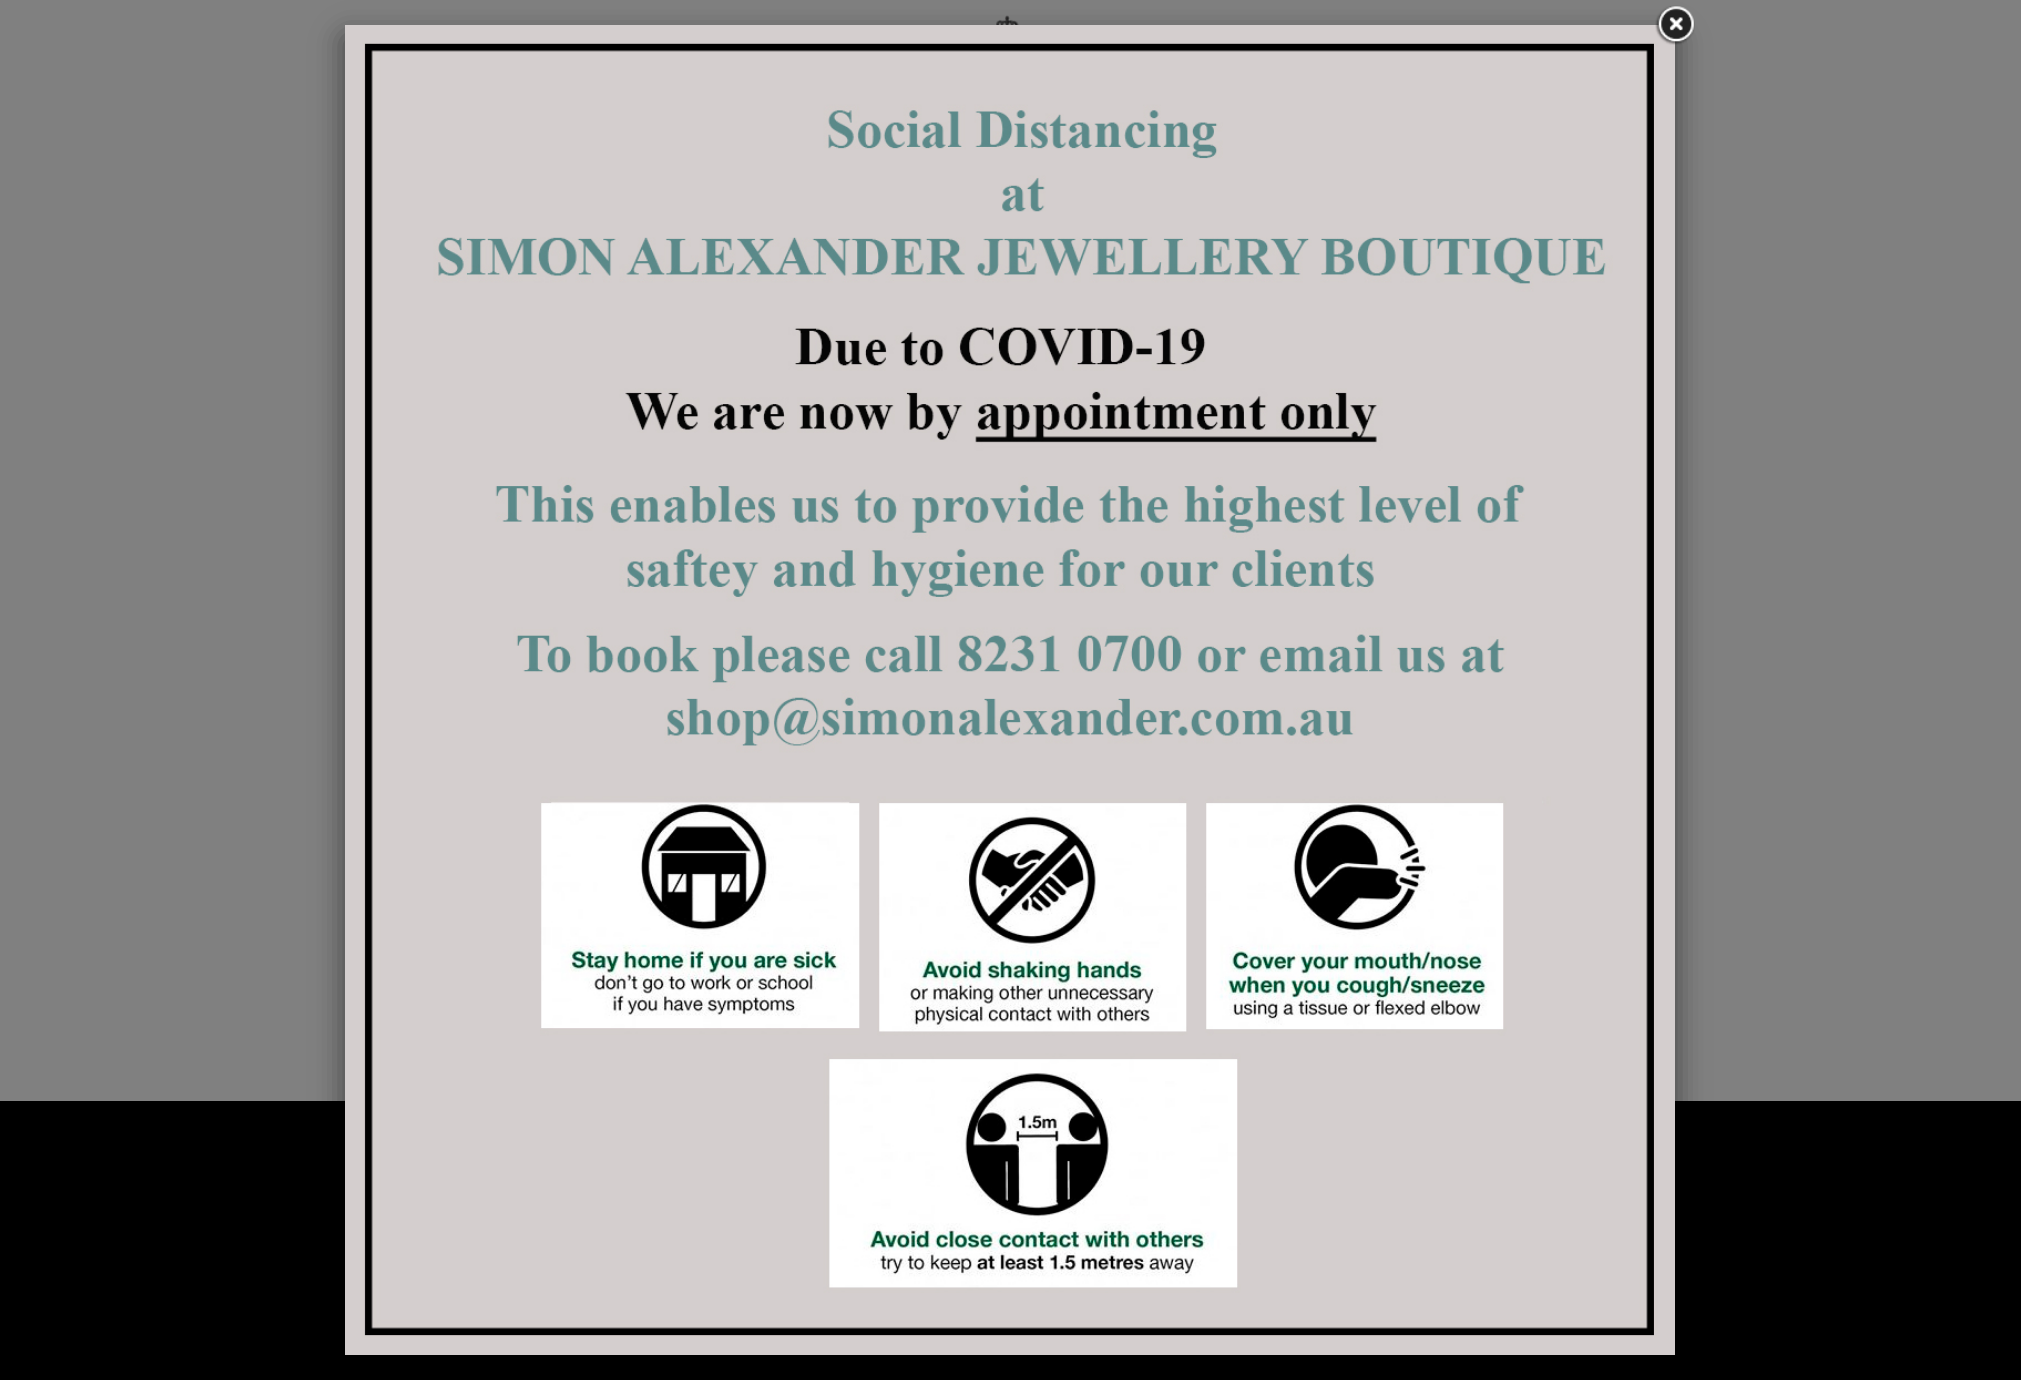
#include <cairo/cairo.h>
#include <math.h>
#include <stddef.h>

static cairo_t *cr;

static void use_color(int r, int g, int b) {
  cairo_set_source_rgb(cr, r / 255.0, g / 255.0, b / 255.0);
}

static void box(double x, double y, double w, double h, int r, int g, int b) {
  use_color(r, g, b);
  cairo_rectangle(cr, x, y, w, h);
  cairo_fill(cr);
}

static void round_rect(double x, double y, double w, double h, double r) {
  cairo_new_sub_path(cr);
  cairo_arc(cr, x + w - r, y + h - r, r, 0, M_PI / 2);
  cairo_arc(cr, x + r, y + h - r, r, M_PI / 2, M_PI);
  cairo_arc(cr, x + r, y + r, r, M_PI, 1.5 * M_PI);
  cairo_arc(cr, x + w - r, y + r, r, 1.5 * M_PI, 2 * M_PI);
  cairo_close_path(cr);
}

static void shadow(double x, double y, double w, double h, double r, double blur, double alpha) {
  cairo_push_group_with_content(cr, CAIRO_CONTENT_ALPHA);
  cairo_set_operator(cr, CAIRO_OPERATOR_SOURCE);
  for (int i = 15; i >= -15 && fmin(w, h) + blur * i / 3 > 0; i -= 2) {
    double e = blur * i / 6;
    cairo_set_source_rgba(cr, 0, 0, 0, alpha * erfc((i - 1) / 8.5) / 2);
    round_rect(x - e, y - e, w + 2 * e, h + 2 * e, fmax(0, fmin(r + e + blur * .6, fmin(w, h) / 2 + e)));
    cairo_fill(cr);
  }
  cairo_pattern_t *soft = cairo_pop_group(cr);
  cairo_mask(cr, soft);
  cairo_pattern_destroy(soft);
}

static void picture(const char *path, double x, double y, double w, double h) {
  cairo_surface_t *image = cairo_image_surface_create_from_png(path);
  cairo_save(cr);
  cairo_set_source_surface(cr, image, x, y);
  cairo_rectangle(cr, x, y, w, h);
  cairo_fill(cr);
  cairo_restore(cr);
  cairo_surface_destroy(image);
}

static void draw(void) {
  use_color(0, 0, 0);
  cairo_paint(cr);
  box(0, 0, 2021, 1101, 128, 128, 128);
  picture("img_03.png", 996, 15, 23, 10);
  use_color(0, 0, 0);
  shadow(345, 38, 1330, 1330, 0, 15.5, 0.5);
  picture("img_02.png", 345, 25, 1330, 1330);
  picture("img_01.png", 1655, 5, 40, 40);
}

int main(void) {
  cairo_surface_t *surface = cairo_image_surface_create(CAIRO_FORMAT_RGB24, 2021, 1380);
  cr = cairo_create(surface);
  cairo_font_options_t *options = cairo_font_options_create();
  cairo_font_options_set_hint_metrics(options, CAIRO_HINT_METRICS_OFF);
  cairo_font_options_set_hint_style(options, CAIRO_HINT_STYLE_NONE);
  cairo_set_font_options(cr, options);
  cairo_set_miter_limit(cr, 4);
  draw();
  cairo_surface_write_to_png(surface, "out.png");
  cairo_font_options_destroy(options);
  cairo_destroy(cr);
  cairo_surface_destroy(surface);
  return 0;
}
